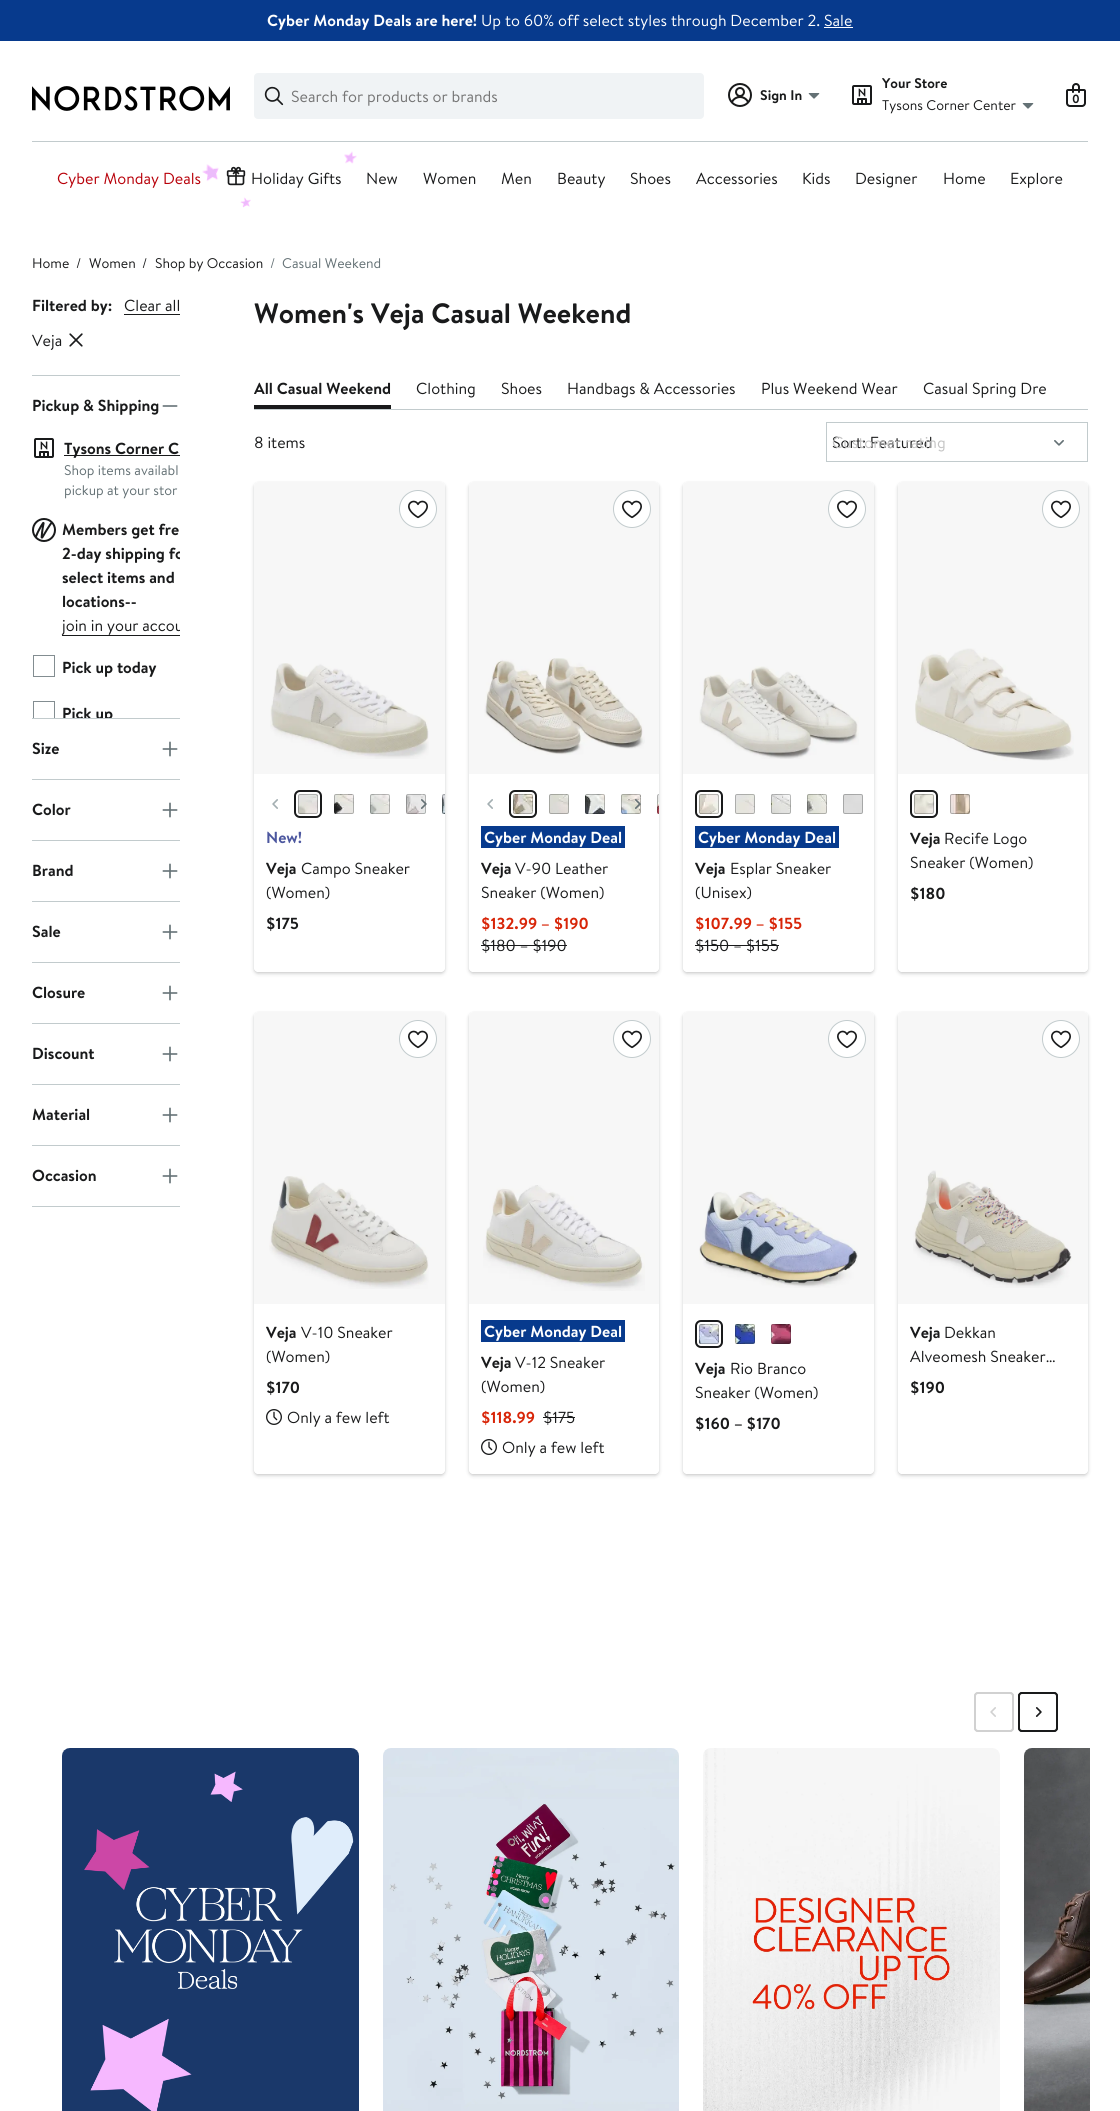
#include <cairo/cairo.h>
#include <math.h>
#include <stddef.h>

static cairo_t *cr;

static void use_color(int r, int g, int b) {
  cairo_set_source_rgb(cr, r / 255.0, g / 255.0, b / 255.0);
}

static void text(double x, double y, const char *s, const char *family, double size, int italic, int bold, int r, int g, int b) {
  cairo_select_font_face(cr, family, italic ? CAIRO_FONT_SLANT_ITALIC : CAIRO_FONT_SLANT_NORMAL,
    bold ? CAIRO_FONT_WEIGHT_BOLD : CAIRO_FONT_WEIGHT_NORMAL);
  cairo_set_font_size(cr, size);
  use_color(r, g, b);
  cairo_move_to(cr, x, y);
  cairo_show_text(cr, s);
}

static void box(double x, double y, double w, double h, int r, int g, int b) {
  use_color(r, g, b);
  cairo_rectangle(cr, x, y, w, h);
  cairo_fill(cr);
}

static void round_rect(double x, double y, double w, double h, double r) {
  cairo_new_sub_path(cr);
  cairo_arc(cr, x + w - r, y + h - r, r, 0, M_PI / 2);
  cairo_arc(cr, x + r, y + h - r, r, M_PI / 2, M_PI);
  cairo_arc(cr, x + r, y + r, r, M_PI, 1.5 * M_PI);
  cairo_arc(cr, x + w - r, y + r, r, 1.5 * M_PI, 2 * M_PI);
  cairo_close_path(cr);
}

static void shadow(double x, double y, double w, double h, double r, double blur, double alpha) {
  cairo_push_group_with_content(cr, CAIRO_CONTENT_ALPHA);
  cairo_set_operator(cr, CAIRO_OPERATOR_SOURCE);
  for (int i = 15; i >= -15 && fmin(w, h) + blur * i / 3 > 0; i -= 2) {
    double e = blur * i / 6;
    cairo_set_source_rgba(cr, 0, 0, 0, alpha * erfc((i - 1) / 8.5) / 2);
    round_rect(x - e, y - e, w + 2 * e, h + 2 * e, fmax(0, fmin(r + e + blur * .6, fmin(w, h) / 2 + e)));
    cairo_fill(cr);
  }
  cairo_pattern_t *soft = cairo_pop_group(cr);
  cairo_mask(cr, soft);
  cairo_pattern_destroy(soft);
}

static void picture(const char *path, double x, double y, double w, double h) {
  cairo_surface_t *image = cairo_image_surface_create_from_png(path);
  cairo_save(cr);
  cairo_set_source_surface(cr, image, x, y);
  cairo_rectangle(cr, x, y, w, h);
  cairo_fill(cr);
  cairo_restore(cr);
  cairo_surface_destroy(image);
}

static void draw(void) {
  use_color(255, 255, 255);
  cairo_paint(cr);
  box(0, 0, 1120, 41, 7, 58, 141);
  box(824, 27, 29, 1, 255, 255, 255);
  picture("img_01.png", 32, 86, 198, 25);
  use_color(240, 243, 245);
  round_rect(254, 73, 450, 46, 4);
  cairo_fill(cr);
  picture("img_02.png", 264, 86, 20, 20);
  picture("img_03.png", 728, 83, 24, 24);
  picture("img_04.png", 808, 93, 12, 6);
  picture("img_05.png", 852, 85, 20, 20);
  picture("img_04.png", 1022, 103, 12, 6);
  picture("img_06.png", 1066, 83, 20, 24);
  box(32, 141, 1056, 1, 194, 203, 205);
  picture("img_08.png", 226, 166, 20, 20);
  box(124, 314, 56, 1, 25, 26, 27);
  picture("img_09.png", 69, 333, 14, 14);
  box(32, 375, 148, 1, 194, 203, 205);
  box(32, 718, 148, 1, 194, 203, 205);
  picture("img_10.png", 162, 405, 16, 2);
  picture("img_05.png", 34, 438, 20, 20);
  box(64, 455, 116, 1, 25, 26, 27);
  picture("img_11.png", 32, 518, 24, 24);
  box(62, 635, 118, 1, 25, 26, 27);
  cairo_rectangle(cr, 33.5, 655.5, 21, 21);
  use_color(131, 141, 145);
  cairo_set_line_width(cr, 1);
  cairo_stroke(cr);
  cairo_save(cr);
  cairo_rectangle(cr, 32, 436, 148, 282);
  cairo_clip(cr);
  cairo_rectangle(cr, 33.5, 701.5, 21, 21);
  cairo_stroke(cr);
  cairo_restore(cr);
  box(32, 779, 148, 1, 194, 203, 205);
  picture("img_12.png", 162, 741, 16, 16);
  box(32, 840, 148, 1, 194, 203, 205);
  picture("img_12.png", 162, 802, 16, 16);
  box(32, 901, 148, 1, 194, 203, 205);
  picture("img_12.png", 162, 863, 16, 16);
  box(32, 962, 148, 1, 194, 203, 205);
  picture("img_12.png", 162, 924, 16, 16);
  box(32, 1023, 148, 1, 194, 203, 205);
  picture("img_12.png", 162, 985, 16, 16);
  box(32, 1084, 148, 1, 194, 203, 205);
  picture("img_12.png", 162, 1046, 16, 16);
  box(32, 1145, 148, 1, 194, 203, 205);
  picture("img_12.png", 162, 1107, 16, 16);
  box(32, 1206, 148, 1, 194, 203, 205);
  picture("img_12.png", 162, 1168, 16, 16);
  box(254, 409, 834, 1, 194, 203, 205);
  box(254, 405, 137, 4, 25, 26, 27);
  cairo_rectangle(cr, 826.5, 422.5, 261, 39);
  use_color(194, 203, 205);
  cairo_stroke(cr);
  picture("img_13.png", 1054, 440, 10, 6);
  cairo_save(cr);
  cairo_set_fill_rule(cr, CAIRO_FILL_RULE_EVEN_ODD);
  cairo_new_path(cr);
  cairo_move_to(cr, 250, 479);
  cairo_line_to(cr, 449, 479);
  cairo_line_to(cr, 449, 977);
  cairo_line_to(cr, 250, 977);
  cairo_close_path(cr);
  cairo_move_to(cr, 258, 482);
  cairo_line_to(cr, 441, 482);
  cairo_curve_to(cr, 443, 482, 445, 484, 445, 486);
  cairo_line_to(cr, 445, 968);
  cairo_curve_to(cr, 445, 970, 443, 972, 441, 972);
  cairo_line_to(cr, 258, 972);
  cairo_curve_to(cr, 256, 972, 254, 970, 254, 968);
  cairo_line_to(cr, 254, 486);
  cairo_curve_to(cr, 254, 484, 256, 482, 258, 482);
  cairo_close_path(cr);
  cairo_clip(cr);
  use_color(25, 26, 27);
  shadow(254, 483, 191, 490, 4, 1, 0.09);
  cairo_restore(cr);
  cairo_save(cr);
  cairo_set_fill_rule(cr, CAIRO_FILL_RULE_EVEN_ODD);
  cairo_new_path(cr);
  cairo_move_to(cr, 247, 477);
  cairo_line_to(cr, 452, 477);
  cairo_line_to(cr, 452, 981);
  cairo_line_to(cr, 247, 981);
  cairo_close_path(cr);
  cairo_move_to(cr, 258, 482);
  cairo_line_to(cr, 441, 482);
  cairo_curve_to(cr, 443, 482, 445, 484, 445, 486);
  cairo_line_to(cr, 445, 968);
  cairo_curve_to(cr, 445, 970, 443, 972, 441, 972);
  cairo_line_to(cr, 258, 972);
  cairo_curve_to(cr, 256, 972, 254, 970, 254, 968);
  cairo_line_to(cr, 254, 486);
  cairo_curve_to(cr, 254, 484, 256, 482, 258, 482);
  cairo_close_path(cr);
  cairo_clip(cr);
  use_color(25, 26, 27);
  shadow(254, 484, 191, 490, 4, 2, 0.15);
  cairo_restore(cr);
  use_color(247, 247, 247);
  cairo_new_path(cr);
  cairo_move_to(cr, 258, 482);
  cairo_line_to(cr, 441, 482);
  cairo_curve_to(cr, 443, 482, 445, 484, 445, 486);
  cairo_line_to(cr, 445, 774);
  cairo_line_to(cr, 254, 774);
  cairo_line_to(cr, 254, 486);
  cairo_curve_to(cr, 254, 484, 256, 482, 258, 482);
  cairo_close_path(cr);
  cairo_fill(cr);
  picture("img_14.png", 270, 663, 159, 96);
  use_color(255, 255, 255);
  cairo_arc(cr, 418, 509, 18.5, 0, 2 * M_PI);
  cairo_fill_preserve(cr);
  use_color(194, 203, 205);
  cairo_stroke(cr);
  picture("img_15.png", 408, 500, 20, 19);
  picture("img_16.png", 272, 799, 6, 10);
  picture("img_17.png", 298, 794, 20, 20);
  round_rect(298.5, 794.5, 19, 19, 1.5);
  cairo_set_source_rgba(cr, 0.098, 0.102, 0.106, 0.27);
  cairo_stroke(cr);
  round_rect(295, 791, 26, 26, 5);
  use_color(25, 26, 27);
  cairo_set_line_width(cr, 2);
  cairo_stroke(cr);
  picture("img_18.png", 334, 794, 20, 20);
  round_rect(334.5, 794.5, 19, 19, 1.5);
  cairo_set_source_rgba(cr, 0.098, 0.102, 0.106, 0.27);
  cairo_set_line_width(cr, 1);
  cairo_stroke(cr);
  picture("img_19.png", 370, 794, 20, 20);
  round_rect(370.5, 794.5, 19, 19, 1.5);
  cairo_stroke(cr);
  picture("img_20.png", 406, 794, 20, 20);
  round_rect(406.5, 794.5, 19, 19, 1.5);
  cairo_stroke(cr);
  picture("img_21.png", 442, 794, 3, 20);
  cairo_new_path(cr);
  cairo_move_to(cr, 444, 794);
  cairo_curve_to(cr, 443, 794, 442, 795, 442, 796);
  cairo_line_to(cr, 442, 812);
  cairo_curve_to(cr, 442, 813, 443, 814, 444, 814);
  cairo_line_to(cr, 445, 814);
  cairo_line_to(cr, 445, 813);
  cairo_curve_to(cr, 442.5, 813, 443, 812, 443, 809.5);
  cairo_line_to(cr, 443, 798.5);
  cairo_curve_to(cr, 443, 796, 442.5, 795, 445, 795);
  cairo_line_to(cr, 445, 794);
  cairo_close_path(cr);
  cairo_fill(cr);
  picture("img_22.png", 421, 799, 6, 10);
  cairo_save(cr);
  cairo_set_fill_rule(cr, CAIRO_FILL_RULE_EVEN_ODD);
  cairo_new_path(cr);
  cairo_move_to(cr, 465, 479);
  cairo_line_to(cr, 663, 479);
  cairo_line_to(cr, 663, 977);
  cairo_line_to(cr, 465, 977);
  cairo_close_path(cr);
  cairo_move_to(cr, 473, 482);
  cairo_line_to(cr, 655, 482);
  cairo_curve_to(cr, 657, 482, 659, 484, 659, 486);
  cairo_line_to(cr, 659, 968);
  cairo_curve_to(cr, 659, 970, 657, 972, 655, 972);
  cairo_line_to(cr, 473, 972);
  cairo_curve_to(cr, 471, 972, 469, 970, 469, 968);
  cairo_line_to(cr, 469, 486);
  cairo_curve_to(cr, 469, 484, 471, 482, 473, 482);
  cairo_close_path(cr);
  cairo_clip(cr);
  use_color(25, 26, 27);
  shadow(469, 483, 190, 490, 4, 1, 0.09);
  cairo_restore(cr);
  cairo_save(cr);
  cairo_set_fill_rule(cr, CAIRO_FILL_RULE_EVEN_ODD);
  cairo_new_path(cr);
  cairo_move_to(cr, 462, 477);
  cairo_line_to(cr, 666, 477);
  cairo_line_to(cr, 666, 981);
  cairo_line_to(cr, 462, 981);
  cairo_close_path(cr);
  cairo_move_to(cr, 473, 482);
  cairo_line_to(cr, 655, 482);
  cairo_curve_to(cr, 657, 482, 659, 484, 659, 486);
  cairo_line_to(cr, 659, 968);
  cairo_curve_to(cr, 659, 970, 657, 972, 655, 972);
  cairo_line_to(cr, 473, 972);
  cairo_curve_to(cr, 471, 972, 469, 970, 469, 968);
  cairo_line_to(cr, 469, 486);
  cairo_curve_to(cr, 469, 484, 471, 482, 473, 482);
  cairo_close_path(cr);
  cairo_clip(cr);
  use_color(25, 26, 27);
  shadow(469, 484, 190, 490, 4, 2, 0.15);
  cairo_restore(cr);
  use_color(247, 247, 247);
  cairo_new_path(cr);
  cairo_move_to(cr, 473, 482);
  cairo_line_to(cr, 655, 482);
  cairo_curve_to(cr, 657, 482, 659, 484, 659, 486);
  cairo_line_to(cr, 659, 774);
  cairo_line_to(cr, 469, 774);
  cairo_line_to(cr, 469, 486);
  cairo_curve_to(cr, 469, 484, 471, 482, 473, 482);
  cairo_close_path(cr);
  cairo_fill(cr);
  picture("img_23.png", 484, 658, 161, 97);
  use_color(255, 255, 255);
  cairo_arc(cr, 632, 509, 18.5, 0, 2 * M_PI);
  cairo_fill_preserve(cr);
  use_color(194, 203, 205);
  cairo_stroke(cr);
  picture("img_15.png", 622, 500, 20, 19);
  picture("img_16.png", 487, 799, 6, 10);
  picture("img_24.png", 513, 794, 20, 20);
  round_rect(513.5, 794.5, 19, 19, 1.5);
  cairo_set_source_rgba(cr, 0.098, 0.102, 0.106, 0.27);
  cairo_stroke(cr);
  round_rect(510, 791, 26, 26, 5);
  use_color(25, 26, 27);
  cairo_set_line_width(cr, 2);
  cairo_stroke(cr);
  picture("img_25.png", 549, 794, 20, 20);
  round_rect(549.5, 794.5, 19, 19, 1.5);
  cairo_set_source_rgba(cr, 0.098, 0.102, 0.106, 0.27);
  cairo_set_line_width(cr, 1);
  cairo_stroke(cr);
  picture("img_26.png", 585, 794, 20, 20);
  round_rect(585.5, 794.5, 19, 19, 1.5);
  cairo_stroke(cr);
  picture("img_27.png", 621, 794, 20, 20);
  round_rect(621.5, 794.5, 19, 19, 1.5);
  cairo_stroke(cr);
  picture("img_28.png", 657, 794, 2, 20);
  cairo_new_path(cr);
  cairo_move_to(cr, 659, 795);
  cairo_line_to(cr, 659, 794);
  cairo_curve_to(cr, 658, 794, 657, 795, 657, 796);
  cairo_line_to(cr, 657, 812);
  cairo_curve_to(cr, 657, 813, 658, 814, 659, 814);
  cairo_line_to(cr, 659, 813);
  cairo_curve_to(cr, 658.5, 813, 658, 812.5, 658, 812);
  cairo_line_to(cr, 658, 796);
  cairo_curve_to(cr, 658, 795.5, 658.5, 795, 659, 795);
  cairo_close_path(cr);
  cairo_fill(cr);
  picture("img_29.png", 635, 799, 6, 10);
  box(481, 826, 144, 22, 7, 58, 141);
  box(481, 945, 86, 1, 25, 26, 27);
  cairo_save(cr);
  cairo_set_fill_rule(cr, CAIRO_FILL_RULE_EVEN_ODD);
  cairo_new_path(cr);
  cairo_move_to(cr, 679, 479);
  cairo_line_to(cr, 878, 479);
  cairo_line_to(cr, 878, 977);
  cairo_line_to(cr, 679, 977);
  cairo_close_path(cr);
  cairo_move_to(cr, 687, 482);
  cairo_line_to(cr, 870, 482);
  cairo_curve_to(cr, 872, 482, 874, 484, 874, 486);
  cairo_line_to(cr, 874, 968);
  cairo_curve_to(cr, 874, 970, 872, 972, 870, 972);
  cairo_line_to(cr, 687, 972);
  cairo_curve_to(cr, 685, 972, 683, 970, 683, 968);
  cairo_line_to(cr, 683, 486);
  cairo_curve_to(cr, 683, 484, 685, 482, 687, 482);
  cairo_close_path(cr);
  cairo_clip(cr);
  use_color(25, 26, 27);
  shadow(683, 483, 191, 490, 4, 1, 0.09);
  cairo_restore(cr);
  cairo_save(cr);
  cairo_set_fill_rule(cr, CAIRO_FILL_RULE_EVEN_ODD);
  cairo_new_path(cr);
  cairo_move_to(cr, 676, 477);
  cairo_line_to(cr, 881, 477);
  cairo_line_to(cr, 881, 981);
  cairo_line_to(cr, 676, 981);
  cairo_close_path(cr);
  cairo_move_to(cr, 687, 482);
  cairo_line_to(cr, 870, 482);
  cairo_curve_to(cr, 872, 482, 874, 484, 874, 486);
  cairo_line_to(cr, 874, 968);
  cairo_curve_to(cr, 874, 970, 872, 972, 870, 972);
  cairo_line_to(cr, 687, 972);
  cairo_curve_to(cr, 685, 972, 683, 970, 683, 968);
  cairo_line_to(cr, 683, 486);
  cairo_curve_to(cr, 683, 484, 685, 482, 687, 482);
  cairo_close_path(cr);
  cairo_clip(cr);
  use_color(25, 26, 27);
  shadow(683, 484, 191, 490, 4, 2, 0.15);
  cairo_restore(cr);
  use_color(247, 247, 247);
  cairo_new_path(cr);
  cairo_move_to(cr, 687, 482);
  cairo_line_to(cr, 870, 482);
  cairo_curve_to(cr, 872, 482, 874, 484, 874, 486);
  cairo_line_to(cr, 874, 774);
  cairo_line_to(cr, 683, 774);
  cairo_line_to(cr, 683, 486);
  cairo_curve_to(cr, 683, 484, 685, 482, 687, 482);
  cairo_close_path(cr);
  cairo_fill(cr);
  picture("img_30.png", 699, 666, 160, 93);
  use_color(255, 255, 255);
  cairo_arc(cr, 847, 509, 18.5, 0, 2 * M_PI);
  cairo_fill_preserve(cr);
  use_color(194, 203, 205);
  cairo_stroke(cr);
  picture("img_15.png", 837, 500, 20, 19);
  picture("img_31.png", 699, 794, 20, 20);
  round_rect(699.5, 794.5, 19, 19, 1.5);
  cairo_set_source_rgba(cr, 0.098, 0.102, 0.106, 0.27);
  cairo_stroke(cr);
  round_rect(696, 791, 26, 26, 5);
  use_color(25, 26, 27);
  cairo_set_line_width(cr, 2);
  cairo_stroke(cr);
  picture("img_32.png", 735, 794, 20, 20);
  round_rect(735.5, 794.5, 19, 19, 1.5);
  cairo_set_source_rgba(cr, 0.098, 0.102, 0.106, 0.27);
  cairo_set_line_width(cr, 1);
  cairo_stroke(cr);
  picture("img_33.png", 771, 794, 20, 20);
  round_rect(771.5, 794.5, 19, 19, 1.5);
  cairo_stroke(cr);
  picture("img_34.png", 807, 794, 20, 20);
  round_rect(807.5, 794.5, 19, 19, 1.5);
  cairo_stroke(cr);
  picture("img_35.png", 843, 794, 20, 20);
  round_rect(843.5, 794.5, 19, 19, 1.5);
  cairo_stroke(cr);
  box(695, 826, 144, 22, 7, 58, 141);
  box(695, 945, 84, 1, 25, 26, 27);
  cairo_save(cr);
  cairo_set_fill_rule(cr, CAIRO_FILL_RULE_EVEN_ODD);
  cairo_new_path(cr);
  cairo_move_to(cr, 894, 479);
  cairo_line_to(cr, 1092, 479);
  cairo_line_to(cr, 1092, 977);
  cairo_line_to(cr, 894, 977);
  cairo_close_path(cr);
  cairo_move_to(cr, 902, 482);
  cairo_line_to(cr, 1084, 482);
  cairo_curve_to(cr, 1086, 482, 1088, 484, 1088, 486);
  cairo_line_to(cr, 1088, 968);
  cairo_curve_to(cr, 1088, 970, 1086, 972, 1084, 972);
  cairo_line_to(cr, 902, 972);
  cairo_curve_to(cr, 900, 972, 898, 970, 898, 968);
  cairo_line_to(cr, 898, 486);
  cairo_curve_to(cr, 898, 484, 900, 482, 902, 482);
  cairo_close_path(cr);
  cairo_clip(cr);
  use_color(25, 26, 27);
  shadow(898, 483, 190, 490, 4, 1, 0.09);
  cairo_restore(cr);
  cairo_save(cr);
  cairo_set_fill_rule(cr, CAIRO_FILL_RULE_EVEN_ODD);
  cairo_new_path(cr);
  cairo_move_to(cr, 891, 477);
  cairo_line_to(cr, 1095, 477);
  cairo_line_to(cr, 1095, 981);
  cairo_line_to(cr, 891, 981);
  cairo_close_path(cr);
  cairo_move_to(cr, 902, 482);
  cairo_line_to(cr, 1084, 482);
  cairo_curve_to(cr, 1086, 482, 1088, 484, 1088, 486);
  cairo_line_to(cr, 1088, 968);
  cairo_curve_to(cr, 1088, 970, 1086, 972, 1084, 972);
  cairo_line_to(cr, 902, 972);
  cairo_curve_to(cr, 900, 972, 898, 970, 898, 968);
  cairo_line_to(cr, 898, 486);
  cairo_curve_to(cr, 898, 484, 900, 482, 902, 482);
  cairo_close_path(cr);
  cairo_clip(cr);
  use_color(25, 26, 27);
  shadow(898, 484, 190, 490, 4, 2, 0.15);
  cairo_restore(cr);
  use_color(247, 247, 247);
  cairo_new_path(cr);
  cairo_move_to(cr, 902, 482);
  cairo_line_to(cr, 1084, 482);
  cairo_curve_to(cr, 1086, 482, 1088, 484, 1088, 486);
  cairo_line_to(cr, 1088, 774);
  cairo_line_to(cr, 898, 774);
  cairo_line_to(cr, 898, 486);
  cairo_curve_to(cr, 898, 484, 900, 482, 902, 482);
  cairo_close_path(cr);
  cairo_fill(cr);
  picture("img_36.png", 915, 648, 159, 113);
  use_color(255, 255, 255);
  cairo_arc(cr, 1061, 509, 18.5, 0, 2 * M_PI);
  cairo_fill_preserve(cr);
  use_color(194, 203, 205);
  cairo_stroke(cr);
  picture("img_15.png", 1051, 500, 20, 19);
  picture("img_37.png", 914, 794, 20, 20);
  round_rect(914.5, 794.5, 19, 19, 1.5);
  cairo_set_source_rgba(cr, 0.098, 0.102, 0.106, 0.27);
  cairo_stroke(cr);
  round_rect(911, 791, 26, 26, 5);
  use_color(25, 26, 27);
  cairo_set_line_width(cr, 2);
  cairo_stroke(cr);
  picture("img_38.png", 950, 794, 20, 20);
  round_rect(950.5, 794.5, 19, 19, 1.5);
  cairo_set_source_rgba(cr, 0.098, 0.102, 0.106, 0.27);
  cairo_set_line_width(cr, 1);
  cairo_stroke(cr);
  cairo_save(cr);
  cairo_set_fill_rule(cr, CAIRO_FILL_RULE_EVEN_ODD);
  cairo_new_path(cr);
  cairo_move_to(cr, 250, 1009);
  cairo_line_to(cr, 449, 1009);
  cairo_line_to(cr, 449, 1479);
  cairo_line_to(cr, 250, 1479);
  cairo_close_path(cr);
  cairo_move_to(cr, 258, 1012);
  cairo_line_to(cr, 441, 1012);
  cairo_curve_to(cr, 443, 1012, 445, 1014, 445, 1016);
  cairo_line_to(cr, 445, 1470);
  cairo_curve_to(cr, 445, 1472, 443, 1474, 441, 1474);
  cairo_line_to(cr, 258, 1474);
  cairo_curve_to(cr, 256, 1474, 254, 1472, 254, 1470);
  cairo_line_to(cr, 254, 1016);
  cairo_curve_to(cr, 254, 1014, 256, 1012, 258, 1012);
  cairo_close_path(cr);
  cairo_clip(cr);
  use_color(25, 26, 27);
  shadow(254, 1013, 191, 462, 4, 1, 0.09);
  cairo_restore(cr);
  cairo_save(cr);
  cairo_set_fill_rule(cr, CAIRO_FILL_RULE_EVEN_ODD);
  cairo_new_path(cr);
  cairo_move_to(cr, 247, 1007);
  cairo_line_to(cr, 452, 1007);
  cairo_line_to(cr, 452, 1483);
  cairo_line_to(cr, 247, 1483);
  cairo_close_path(cr);
  cairo_move_to(cr, 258, 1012);
  cairo_line_to(cr, 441, 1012);
  cairo_curve_to(cr, 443, 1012, 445, 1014, 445, 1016);
  cairo_line_to(cr, 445, 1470);
  cairo_curve_to(cr, 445, 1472, 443, 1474, 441, 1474);
  cairo_line_to(cr, 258, 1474);
  cairo_curve_to(cr, 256, 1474, 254, 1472, 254, 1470);
  cairo_line_to(cr, 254, 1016);
  cairo_curve_to(cr, 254, 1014, 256, 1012, 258, 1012);
  cairo_close_path(cr);
  cairo_clip(cr);
  use_color(25, 26, 27);
  shadow(254, 1014, 191, 462, 4, 2, 0.15);
  cairo_restore(cr);
  use_color(247, 247, 247);
  cairo_new_path(cr);
  cairo_move_to(cr, 258, 1012);
  cairo_line_to(cr, 441, 1012);
  cairo_curve_to(cr, 443, 1012, 445, 1014, 445, 1016);
  cairo_line_to(cr, 445, 1304);
  cairo_line_to(cr, 254, 1304);
  cairo_line_to(cr, 254, 1016);
  cairo_curve_to(cr, 254, 1014, 256, 1012, 258, 1012);
  cairo_close_path(cr);
  cairo_fill(cr);
  picture("img_39.png", 269, 1176, 160, 113);
  use_color(255, 255, 255);
  cairo_arc(cr, 418, 1039, 18.5, 0, 2 * M_PI);
  cairo_fill_preserve(cr);
  use_color(194, 203, 205);
  cairo_stroke(cr);
  picture("img_15.png", 408, 1030, 20, 19);
  picture("img_40.png", 266, 1409, 16, 16);
  cairo_save(cr);
  cairo_set_fill_rule(cr, CAIRO_FILL_RULE_EVEN_ODD);
  cairo_new_path(cr);
  cairo_move_to(cr, 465, 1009);
  cairo_line_to(cr, 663, 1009);
  cairo_line_to(cr, 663, 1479);
  cairo_line_to(cr, 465, 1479);
  cairo_close_path(cr);
  cairo_move_to(cr, 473, 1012);
  cairo_line_to(cr, 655, 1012);
  cairo_curve_to(cr, 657, 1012, 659, 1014, 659, 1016);
  cairo_line_to(cr, 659, 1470);
  cairo_curve_to(cr, 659, 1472, 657, 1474, 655, 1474);
  cairo_line_to(cr, 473, 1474);
  cairo_curve_to(cr, 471, 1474, 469, 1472, 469, 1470);
  cairo_line_to(cr, 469, 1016);
  cairo_curve_to(cr, 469, 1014, 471, 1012, 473, 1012);
  cairo_close_path(cr);
  cairo_clip(cr);
  use_color(25, 26, 27);
  shadow(469, 1013, 190, 462, 4, 1, 0.09);
  cairo_restore(cr);
  cairo_save(cr);
  cairo_set_fill_rule(cr, CAIRO_FILL_RULE_EVEN_ODD);
  cairo_new_path(cr);
  cairo_move_to(cr, 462, 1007);
  cairo_line_to(cr, 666, 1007);
  cairo_line_to(cr, 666, 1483);
  cairo_line_to(cr, 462, 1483);
  cairo_close_path(cr);
  cairo_move_to(cr, 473, 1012);
  cairo_line_to(cr, 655, 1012);
  cairo_curve_to(cr, 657, 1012, 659, 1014, 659, 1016);
  cairo_line_to(cr, 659, 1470);
  cairo_curve_to(cr, 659, 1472, 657, 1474, 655, 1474);
  cairo_line_to(cr, 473, 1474);
  cairo_curve_to(cr, 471, 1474, 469, 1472, 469, 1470);
  cairo_line_to(cr, 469, 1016);
  cairo_curve_to(cr, 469, 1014, 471, 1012, 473, 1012);
  cairo_close_path(cr);
  cairo_clip(cr);
  use_color(25, 26, 27);
  shadow(469, 1014, 190, 462, 4, 2, 0.15);
  cairo_restore(cr);
  use_color(247, 247, 247);
  cairo_new_path(cr);
  cairo_move_to(cr, 473, 1012);
  cairo_line_to(cr, 655, 1012);
  cairo_curve_to(cr, 657, 1012, 659, 1014, 659, 1016);
  cairo_line_to(cr, 659, 1304);
  cairo_line_to(cr, 469, 1304);
  cairo_line_to(cr, 469, 1016);
  cairo_curve_to(cr, 469, 1014, 471, 1012, 473, 1012);
  cairo_close_path(cr);
  cairo_fill(cr);
  picture("img_41.png", 483, 1185, 162, 106);
  use_color(255, 255, 255);
  cairo_arc(cr, 632, 1039, 18.5, 0, 2 * M_PI);
  cairo_fill_preserve(cr);
  use_color(194, 203, 205);
  cairo_stroke(cr);
  picture("img_15.png", 622, 1030, 20, 19);
  box(481, 1320, 144, 22, 7, 58, 141);
  box(543, 1417, 32, 1, 25, 26, 27);
  picture("img_40.png", 481, 1439, 16, 16);
  cairo_save(cr);
  cairo_set_fill_rule(cr, CAIRO_FILL_RULE_EVEN_ODD);
  cairo_new_path(cr);
  cairo_move_to(cr, 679, 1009);
  cairo_line_to(cr, 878, 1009);
  cairo_line_to(cr, 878, 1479);
  cairo_line_to(cr, 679, 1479);
  cairo_close_path(cr);
  cairo_move_to(cr, 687, 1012);
  cairo_line_to(cr, 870, 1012);
  cairo_curve_to(cr, 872, 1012, 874, 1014, 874, 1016);
  cairo_line_to(cr, 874, 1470);
  cairo_curve_to(cr, 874, 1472, 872, 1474, 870, 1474);
  cairo_line_to(cr, 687, 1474);
  cairo_curve_to(cr, 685, 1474, 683, 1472, 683, 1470);
  cairo_line_to(cr, 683, 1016);
  cairo_curve_to(cr, 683, 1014, 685, 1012, 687, 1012);
  cairo_close_path(cr);
  cairo_clip(cr);
  use_color(25, 26, 27);
  shadow(683, 1013, 191, 462, 4, 1, 0.09);
  cairo_restore(cr);
  cairo_save(cr);
  cairo_set_fill_rule(cr, CAIRO_FILL_RULE_EVEN_ODD);
  cairo_new_path(cr);
  cairo_move_to(cr, 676, 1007);
  cairo_line_to(cr, 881, 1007);
  cairo_line_to(cr, 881, 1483);
  cairo_line_to(cr, 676, 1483);
  cairo_close_path(cr);
  cairo_move_to(cr, 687, 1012);
  cairo_line_to(cr, 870, 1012);
  cairo_curve_to(cr, 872, 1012, 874, 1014, 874, 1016);
  cairo_line_to(cr, 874, 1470);
  cairo_curve_to(cr, 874, 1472, 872, 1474, 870, 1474);
  cairo_line_to(cr, 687, 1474);
  cairo_curve_to(cr, 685, 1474, 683, 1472, 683, 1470);
  cairo_line_to(cr, 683, 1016);
  cairo_curve_to(cr, 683, 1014, 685, 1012, 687, 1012);
  cairo_close_path(cr);
  cairo_clip(cr);
  use_color(25, 26, 27);
  shadow(683, 1014, 191, 462, 4, 2, 0.15);
  cairo_restore(cr);
  use_color(247, 247, 247);
  cairo_new_path(cr);
  cairo_move_to(cr, 687, 1012);
  cairo_line_to(cr, 870, 1012);
  cairo_curve_to(cr, 872, 1012, 874, 1014, 874, 1016);
  cairo_line_to(cr, 874, 1304);
  cairo_line_to(cr, 683, 1304);
  cairo_line_to(cr, 683, 1016);
  cairo_curve_to(cr, 683, 1014, 685, 1012, 687, 1012);
  cairo_close_path(cr);
  cairo_fill(cr);
  picture("img_42.png", 699, 1191, 159, 97);
  use_color(255, 255, 255);
  cairo_arc(cr, 847, 1039, 18.5, 0, 2 * M_PI);
  cairo_fill_preserve(cr);
  use_color(194, 203, 205);
  cairo_stroke(cr);
  picture("img_15.png", 837, 1030, 20, 19);
  picture("img_43.png", 699, 1324, 20, 20);
  round_rect(699.5, 1324.5, 19, 19, 1.5);
  cairo_set_source_rgba(cr, 0.098, 0.102, 0.106, 0.27);
  cairo_stroke(cr);
  round_rect(696, 1321, 26, 26, 5);
  use_color(25, 26, 27);
  cairo_set_line_width(cr, 2);
  cairo_stroke(cr);
  picture("img_44.png", 735, 1324, 20, 20);
  round_rect(735.5, 1324.5, 19, 19, 1.5);
  cairo_set_source_rgba(cr, 0.098, 0.102, 0.106, 0.27);
  cairo_set_line_width(cr, 1);
  cairo_stroke(cr);
  picture("img_45.png", 771, 1324, 20, 20);
  round_rect(771.5, 1324.5, 19, 19, 1.5);
  cairo_stroke(cr);
  cairo_save(cr);
  cairo_set_fill_rule(cr, CAIRO_FILL_RULE_EVEN_ODD);
  cairo_new_path(cr);
  cairo_move_to(cr, 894, 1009);
  cairo_line_to(cr, 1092, 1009);
  cairo_line_to(cr, 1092, 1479);
  cairo_line_to(cr, 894, 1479);
  cairo_close_path(cr);
  cairo_move_to(cr, 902, 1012);
  cairo_line_to(cr, 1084, 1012);
  cairo_curve_to(cr, 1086, 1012, 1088, 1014, 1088, 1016);
  cairo_line_to(cr, 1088, 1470);
  cairo_curve_to(cr, 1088, 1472, 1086, 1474, 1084, 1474);
  cairo_line_to(cr, 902, 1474);
  cairo_curve_to(cr, 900, 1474, 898, 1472, 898, 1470);
  cairo_line_to(cr, 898, 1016);
  cairo_curve_to(cr, 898, 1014, 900, 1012, 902, 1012);
  cairo_close_path(cr);
  cairo_clip(cr);
  use_color(25, 26, 27);
  shadow(898, 1013, 190, 462, 4, 1, 0.09);
  cairo_restore(cr);
  cairo_save(cr);
  cairo_set_fill_rule(cr, CAIRO_FILL_RULE_EVEN_ODD);
  cairo_new_path(cr);
  cairo_move_to(cr, 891, 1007);
  cairo_line_to(cr, 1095, 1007);
  cairo_line_to(cr, 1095, 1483);
  cairo_line_to(cr, 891, 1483);
  cairo_close_path(cr);
  cairo_move_to(cr, 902, 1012);
  cairo_line_to(cr, 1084, 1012);
  cairo_curve_to(cr, 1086, 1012, 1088, 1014, 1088, 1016);
  cairo_line_to(cr, 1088, 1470);
  cairo_curve_to(cr, 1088, 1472, 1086, 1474, 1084, 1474);
  cairo_line_to(cr, 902, 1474);
  cairo_curve_to(cr, 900, 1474, 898, 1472, 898, 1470);
  cairo_line_to(cr, 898, 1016);
  cairo_curve_to(cr, 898, 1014, 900, 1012, 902, 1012);
  cairo_close_path(cr);
  cairo_clip(cr);
  use_color(25, 26, 27);
  shadow(898, 1014, 190, 462, 4, 2, 0.15);
  cairo_restore(cr);
  use_color(247, 247, 247);
  cairo_new_path(cr);
  cairo_move_to(cr, 902, 1012);
  cairo_line_to(cr, 1084, 1012);
  cairo_curve_to(cr, 1086, 1012, 1088, 1014, 1088, 1016);
  cairo_line_to(cr, 1088, 1304);
  cairo_line_to(cr, 898, 1304);
  cairo_line_to(cr, 898, 1016);
  cairo_curve_to(cr, 898, 1014, 900, 1012, 902, 1012);
  cairo_close_path(cr);
  cairo_fill(cr);
  picture("img_46.png", 913, 1170, 159, 118);
  use_color(255, 255, 255);
  cairo_arc(cr, 1061, 1039, 18.5, 0, 2 * M_PI);
  cairo_fill_preserve(cr);
  use_color(194, 203, 205);
  cairo_stroke(cr);
  picture("img_15.png", 1051, 1030, 20, 19);
  round_rect(975, 1693, 38, 38, 3);
  use_color(209, 209, 209);
  cairo_set_line_width(cr, 2);
  cairo_stroke(cr);
  use_color(255, 255, 255);
  round_rect(975, 1693, 38, 38, 3);
  cairo_fill_preserve(cr);
  use_color(209, 209, 209);
  cairo_stroke(cr);
  picture("img_47.png", 990, 1707, 6, 10);
  round_rect(1019, 1693, 38, 38, 3);
  use_color(25, 26, 27);
  cairo_stroke(cr);
  use_color(255, 255, 255);
  round_rect(1019, 1693, 38, 38, 3);
  cairo_fill_preserve(cr);
  use_color(25, 26, 27);
  cairo_stroke(cr);
  picture("img_48.png", 1035, 1707, 7, 10);
  picture("img_49.png", 62, 1748, 297, 363);
  picture("img_50.png", 383, 1748, 296, 363);
  picture("img_51.png", 703, 1748, 297, 363);
  picture("img_52.png", 1024, 1748, 66, 363);
  text(267, 26, "Cyber Monday Deals are here!", "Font", 16, 0, 1, 255, 255, 255);
  text(481, 26, "Up to 60% off select styles through December 2. Sale", "Font", 16, 0, 0, 255, 255, 255);
  text(291, 102, "Search for products or brands", "Font", 16, 0, 0, 117, 117, 117);
  text(760, 100, "Sign In", "Font", 14, 0, 1, 25, 26, 27);
  text(882, 88, "Your Store", "Font", 14, 0, 1, 25, 26, 27);
  text(882, 110, "Tysons Corner Center", "Font", 14, 0, 0, 25, 26, 27);
  text(1072, 103, "0", "Font", 12, 0, 1, 25, 26, 27);
  text(57, 184, "Cyber Monday Deals", "Font", 16, 0, 0, 184, 0, 9);
  text(251, 184, "Holiday Gifts", "Font", 16, 0, 0, 25, 26, 27);
  picture("img_07.png", 202, 151, 155, 57);
  text(366, 184, "New", "Font", 16, 0, 0, 25, 26, 27);
  text(423, 184, "Women", "Font", 16, 0, 0, 25, 26, 27);
  text(501, 184, "Men", "Font", 16, 0, 0, 25, 26, 27);
  text(557, 184, "Beauty", "Font", 16, 0, 0, 25, 26, 27);
  text(630, 184, "Shoes", "Font", 16, 0, 0, 25, 26, 27);
  text(696, 184, "Accessories", "Font", 16, 0, 0, 25, 26, 27);
  text(802, 184, "Kids", "Font", 16, 0, 0, 25, 26, 27);
  text(855, 184, "Designer", "Font", 16, 0, 0, 25, 26, 27);
  text(943, 184, "Home", "Font", 16, 0, 0, 25, 26, 27);
  text(1010, 184, "Explore", "Font", 16, 0, 0, 25, 26, 27);
  text(32, 268, "Home", "Font", 14, 0, 0, 25, 26, 27);
  text(76, 268, "/", "Font", 14, 0, 0, 25, 26, 27);
  text(89, 268, "Women", "Font", 14, 0, 0, 25, 26, 27);
  text(142, 268, "/", "Font", 14, 0, 0, 25, 26, 27);
  text(155, 268, "Shop by Occasion", "Font", 14, 0, 0, 25, 26, 27);
  text(270, 268, "/", "Font", 14, 0, 0, 100, 113, 117);
  text(282, 268, "Casual Weekend", "Font", 14, 0, 0, 100, 113, 117);
  text(32, 311, "Filtered by:", "Font", 16, 0, 1, 25, 26, 27);
  text(124, 311, "Clear all", "Font", 16, 0, 0, 25, 26, 27);
  text(32, 346, "Veja", "Font", 16, 0, 0, 25, 26, 27);
  text(32, 411, "Pickup & Shipping", "Font", 16, 0, 1, 25, 26, 27);
  text(64, 454, "Tysons Corner C", "Font", 16, 0, 1, 25, 26, 27);
  text(64, 475, "Shop items availabl", "Font", 14, 0, 0, 100, 113, 117);
  text(64, 495, "pickup at your stor", "Font", 14, 0, 0, 100, 113, 117);
  text(62, 535, "Members get fre", "Font", 16, 0, 1, 25, 26, 27);
  cairo_save(cr);
  cairo_rectangle(cr, 32, 436, 148, 282);
  cairo_clip(cr);
  text(62, 559, "2-day shipping fo", "Font", 16, 0, 1, 25, 26, 27);
  cairo_restore(cr);
  text(62, 583, "select items and", "Font", 16, 0, 1, 25, 26, 27);
  text(62, 607, "locations--", "Font", 16, 0, 1, 25, 26, 27);
  cairo_save(cr);
  cairo_rectangle(cr, 32, 436, 148, 282);
  cairo_clip(cr);
  text(62, 631, "join in your accou", "Font", 16, 0, 0, 25, 26, 27);
  cairo_restore(cr);
  text(62, 673, "Pick up today", "Font", 16, 0, 1, 25, 26, 27);
  cairo_save(cr);
  cairo_rectangle(cr, 32, 436, 148, 282);
  cairo_clip(cr);
  text(62, 719, "Pick up", "Font", 16, 0, 1, 25, 26, 27);
  cairo_restore(cr);
  text(32, 754, "Size", "Font", 16, 0, 1, 25, 26, 27);
  text(32, 815, "Color", "Font", 16, 0, 1, 25, 26, 27);
  text(32, 876, "Brand", "Font", 16, 0, 1, 25, 26, 27);
  text(32, 937, "Sale", "Font", 16, 0, 1, 25, 26, 27);
  text(32, 998, "Closure", "Font", 16, 0, 1, 25, 26, 27);
  text(32, 1059, "Discount", "Font", 16, 0, 1, 25, 26, 27);
  text(32, 1120, "Material", "Font", 16, 0, 1, 25, 26, 27);
  text(32, 1181, "Occasion", "Font", 16, 0, 1, 25, 26, 27);
  text(254, 323, "Women's Veja Casual Weekend", "Font", 28, 0, 1, 25, 26, 27);
  text(254, 394, "All Casual Weekend", "Font", 16, 0, 1, 25, 26, 27);
  text(416, 394, "Clothing", "Font", 16, 0, 0, 25, 26, 27);
  text(501, 394, "Shoes", "Font", 16, 0, 0, 25, 26, 27);
  text(567, 394, "Handbags & Accessories", "Font", 16, 0, 0, 25, 26, 27);
  text(761, 394, "Plus Weekend Wear", "Font", 16, 0, 0, 25, 26, 27);
  text(923, 394, "Casual Spring Dre", "Font", 16, 0, 0, 25, 26, 27);
  text(254, 448, "8 items", "Font", 16, 0, 0, 25, 26, 27);
  text(832, 448, "Sort: Featured", "Font", 16, 0, 0, 25, 26, 27);
  text(832, 448, "Customer rating", "Font", 16, 0, 0, 196, 196, 196);
  text(266, 843, "New!", "Font", 16, 0, 1, 76, 87, 159);
  text(266, 874, "Veja", "Font", 16, 0, 1, 25, 26, 27);
  text(301, 874, "Campo Sneaker", "Font", 16, 0, 0, 25, 26, 27);
  text(266, 898, "(Women)", "Font", 16, 0, 0, 25, 26, 27);
  text(266, 929, "$175", "Font", 16, 0, 1, 25, 26, 27);
  text(484, 843, "Cyber Monday Deal", "Font", 16, 0, 1, 255, 255, 255);
  text(481, 874, "Veja", "Font", 16, 0, 1, 25, 26, 27);
  text(515, 874, "V-90 Leather", "Font", 16, 0, 0, 25, 26, 27);
  text(481, 898, "Sneaker (Women)", "Font", 16, 0, 0, 25, 26, 27);
  text(481, 929, "$132.99 – $190", "Font", 16, 0, 1, 216, 37, 8);
  text(481, 951, "$180 – $190", "Font", 16, 0, 0, 25, 26, 27);
  text(698, 843, "Cyber Monday Deal", "Font", 16, 0, 1, 255, 255, 255);
  text(695, 874, "Veja", "Font", 16, 0, 1, 25, 26, 27);
  text(730, 874, "Esplar Sneaker", "Font", 16, 0, 0, 25, 26, 27);
  text(695, 898, "(Unisex)", "Font", 16, 0, 0, 25, 26, 27);
  text(695, 929, "$107.99 – $155", "Font", 16, 0, 1, 216, 37, 8);
  text(695, 951, "$150 – $155", "Font", 16, 0, 0, 25, 26, 27);
  text(910, 844, "Veja", "Font", 16, 0, 1, 25, 26, 27);
  text(944, 844, "Recife Logo", "Font", 16, 0, 0, 25, 26, 27);
  text(910, 868, "Sneaker (Women)", "Font", 16, 0, 0, 25, 26, 27);
  text(910, 899, "$180", "Font", 16, 0, 1, 25, 26, 27);
  text(266, 1338, "Veja", "Font", 16, 0, 1, 25, 26, 27);
  text(301, 1338, "V-10 Sneaker", "Font", 16, 0, 0, 25, 26, 27);
  text(266, 1362, "(Women)", "Font", 16, 0, 0, 25, 26, 27);
  text(266, 1393, "$170", "Font", 16, 0, 1, 25, 26, 27);
  text(287, 1423, "Only a few left", "Font", 16, 0, 0, 25, 26, 27);
  text(484, 1337, "Cyber Monday Deal", "Font", 16, 0, 1, 255, 255, 255);
  text(481, 1368, "Veja", "Font", 16, 0, 1, 25, 26, 27);
  text(515, 1368, "V-12 Sneaker", "Font", 16, 0, 0, 25, 26, 27);
  text(481, 1392, "(Women)", "Font", 16, 0, 0, 25, 26, 27);
  text(481, 1423, "$118.99", "Font", 16, 0, 1, 216, 37, 8);
  text(543, 1423, "$175", "Font", 16, 0, 0, 25, 26, 27);
  text(502, 1453, "Only a few left", "Font", 16, 0, 0, 25, 26, 27);
  text(695, 1374, "Veja", "Font", 16, 0, 1, 25, 26, 27);
  text(730, 1374, "Rio Branco", "Font", 16, 0, 0, 25, 26, 27);
  text(695, 1398, "Sneaker (Women)", "Font", 16, 0, 0, 25, 26, 27);
  text(695, 1429, "$160 – $170", "Font", 16, 0, 1, 25, 26, 27);
  text(910, 1338, "Veja", "Font", 16, 0, 1, 25, 26, 27);
  text(944, 1338, "Dekkan", "Font", 16, 0, 0, 25, 26, 27);
  text(910, 1362, "Alveomesh Sneaker…", "Font", 16, 0, 0, 25, 26, 27);
  text(910, 1393, "$190", "Font", 16, 0, 1, 25, 26, 27);
}

int main(void) {
  cairo_surface_t *surface = cairo_image_surface_create(CAIRO_FORMAT_RGB24, 1120, 2111);
  cr = cairo_create(surface);
  cairo_font_options_t *options = cairo_font_options_create();
  cairo_font_options_set_hint_metrics(options, CAIRO_HINT_METRICS_OFF);
  cairo_font_options_set_hint_style(options, CAIRO_HINT_STYLE_NONE);
  cairo_set_font_options(cr, options);
  cairo_set_miter_limit(cr, 4);
  draw();
  cairo_surface_write_to_png(surface, "out.png");
  cairo_font_options_destroy(options);
  cairo_destroy(cr);
  cairo_surface_destroy(surface);
  return 0;
}
